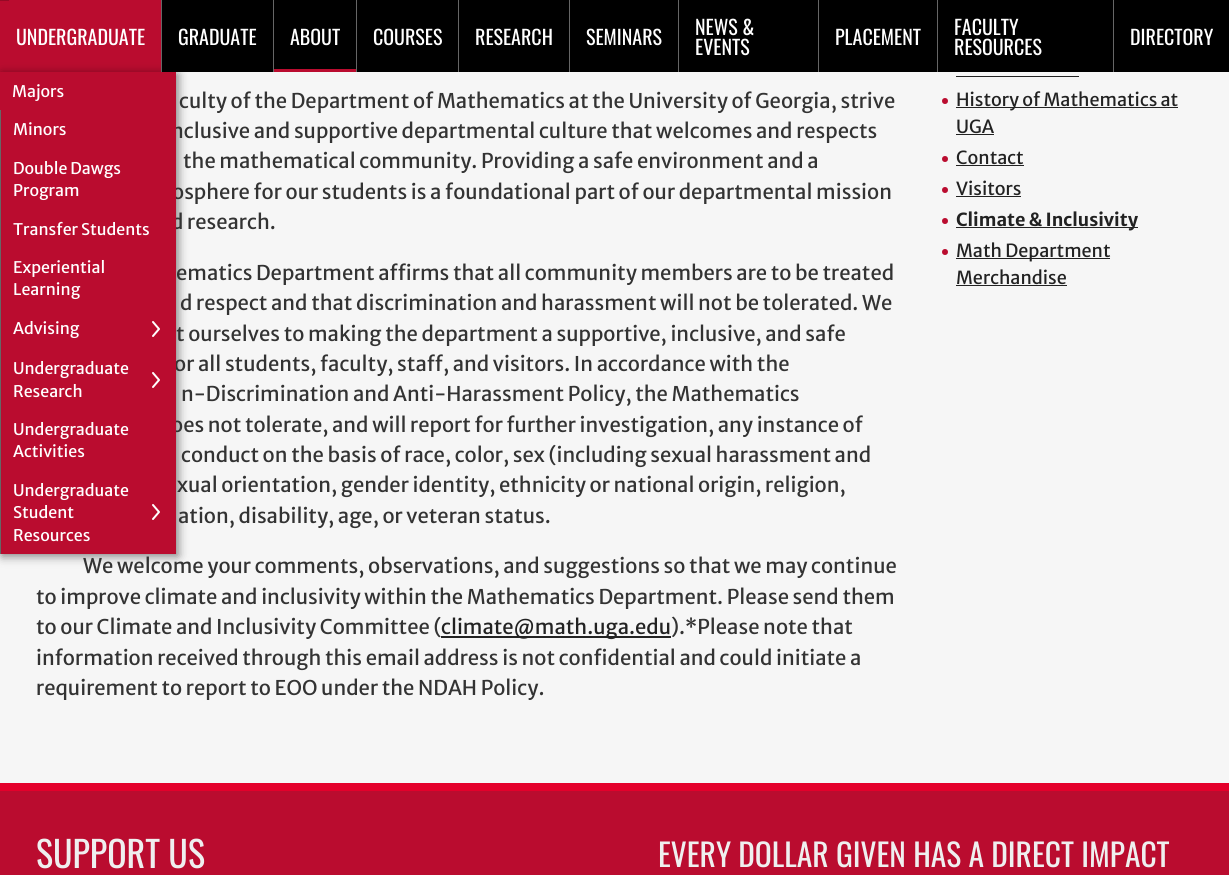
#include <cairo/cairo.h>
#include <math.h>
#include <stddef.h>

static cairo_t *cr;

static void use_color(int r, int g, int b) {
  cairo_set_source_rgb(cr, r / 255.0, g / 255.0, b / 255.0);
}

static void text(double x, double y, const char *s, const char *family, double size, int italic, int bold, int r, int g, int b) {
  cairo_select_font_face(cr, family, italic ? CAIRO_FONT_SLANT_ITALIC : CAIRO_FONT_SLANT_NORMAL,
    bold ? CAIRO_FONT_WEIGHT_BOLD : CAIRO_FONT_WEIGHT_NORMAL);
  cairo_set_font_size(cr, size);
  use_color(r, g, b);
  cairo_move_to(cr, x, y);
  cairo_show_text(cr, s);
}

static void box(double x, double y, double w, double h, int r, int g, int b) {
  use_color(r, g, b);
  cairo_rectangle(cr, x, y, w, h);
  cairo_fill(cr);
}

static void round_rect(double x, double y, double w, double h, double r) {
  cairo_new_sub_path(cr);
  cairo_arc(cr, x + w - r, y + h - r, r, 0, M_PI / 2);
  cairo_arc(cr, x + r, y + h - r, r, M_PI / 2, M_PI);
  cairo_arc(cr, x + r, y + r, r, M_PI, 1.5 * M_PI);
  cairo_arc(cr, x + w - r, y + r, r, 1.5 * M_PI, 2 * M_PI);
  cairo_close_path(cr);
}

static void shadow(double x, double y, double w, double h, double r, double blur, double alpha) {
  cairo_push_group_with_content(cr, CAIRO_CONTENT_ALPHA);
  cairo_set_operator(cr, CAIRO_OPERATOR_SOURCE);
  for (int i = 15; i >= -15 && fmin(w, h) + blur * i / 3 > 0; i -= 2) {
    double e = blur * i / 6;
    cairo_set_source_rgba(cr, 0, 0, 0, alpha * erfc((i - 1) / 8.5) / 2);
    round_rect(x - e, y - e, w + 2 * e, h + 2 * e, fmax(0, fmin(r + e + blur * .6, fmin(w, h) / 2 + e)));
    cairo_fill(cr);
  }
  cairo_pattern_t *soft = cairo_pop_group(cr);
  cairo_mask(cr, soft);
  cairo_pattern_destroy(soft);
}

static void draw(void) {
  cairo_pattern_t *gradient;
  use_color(246, 246, 246);
  cairo_paint(cr);
  box(162, 0, 1067, 72, 0, 0, 0);
  gradient = cairo_pattern_create_linear(80, -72, 81, 72);
  cairo_pattern_add_color_stop_rgba(gradient, 0, 0.584, 0.039, 0.149, 1);
  cairo_pattern_add_color_stop_rgba(gradient, 0.5, 0.584, 0.039, 0.149, 1);
  cairo_pattern_add_color_stop_rgba(gradient, 0.5, 0.729, 0.047, 0.184, 1);
  cairo_set_source(cr, gradient);
  cairo_pattern_destroy(gradient);
  cairo_rectangle(cr, 0, 0, 161, 72);
  cairo_fill(cr);
  use_color(0, 0, 0);
  shadow(2, 74, 176, 482, 0, 5, 0.5);
  box(161, 0, 1, 72, 102, 102, 102);
  box(273, 0, 1, 72, 102, 102, 102);
  box(274, 69, 82, 3, 186, 12, 47);
  box(356, 0, 1, 72, 102, 102, 102);
  box(458, 0, 1, 72, 102, 102, 102);
  box(569, 0, 1, 72, 102, 102, 102);
  box(678, 0, 1, 72, 102, 102, 102);
  box(818, 0, 1, 72, 102, 102, 102);
  box(937, 0, 1, 72, 102, 102, 102);
  box(1113, 0, 1, 72, 102, 102, 102);
  box(441, 636, 230, 2, 34, 34, 34);
  box(956, 76, 123, 1, 34, 34, 34);
  use_color(186, 12, 47);
  cairo_arc(cr, 945, 101, 3, 0, 2 * M_PI);
  cairo_fill(cr);
  box(956, 107, 222, 1, 34, 34, 34);
  box(956, 134, 38, 1, 34, 34, 34);
  use_color(186, 12, 47);
  cairo_arc(cr, 945, 159, 3, 0, 2 * M_PI);
  cairo_fill(cr);
  box(956, 165, 68, 1, 34, 34, 34);
  use_color(186, 12, 47);
  cairo_arc(cr, 945, 190, 3, 0, 2 * M_PI);
  cairo_fill(cr);
  box(956, 196, 65, 1, 34, 34, 34);
  use_color(186, 12, 47);
  cairo_arc(cr, 945, 221, 3, 0, 2 * M_PI);
  cairo_fill(cr);
  box(956, 227, 182, 1, 34, 34, 34);
  use_color(186, 12, 47);
  cairo_arc(cr, 945, 252, 3, 0, 2 * M_PI);
  cairo_fill(cr);
  box(956, 258, 154, 1, 34, 34, 34);
  box(956, 285, 111, 1, 34, 34, 34);
  box(0, 791, 1229, 84, 186, 12, 47);
  box(0, 783, 1229, 8, 228, 0, 43);
  text(16, 45, "UNDERGRADUATE", "Oswald", 20, 0, 0, 255, 255, 255);
  text(178, 45, "GRADUATE", "Oswald", 20, 0, 0, 255, 255, 255);
  text(290, 45, "ABOUT", "Oswald", 20, 0, 0, 255, 255, 255);
  text(373, 45, "COURSES", "Oswald", 20, 0, 0, 255, 255, 255);
  text(475, 45, "RESEARCH", "Oswald", 20, 0, 0, 255, 255, 255);
  text(586, 45, "SEMINARS", "Oswald", 20, 0, 0, 255, 255, 255);
  text(695, 35, "NEWS &", "Oswald", 20, 0, 0, 255, 255, 255);
  text(695, 55, "EVENTS", "Oswald", 20, 0, 0, 255, 255, 255);
  text(835, 45, "PLACEMENT", "Oswald", 20, 0, 0, 255, 255, 255);
  text(954, 35, "FACULTY", "Oswald", 20, 0, 0, 255, 255, 255);
  text(954, 55, "RESOURCES", "Oswald", 20, 0, 0, 255, 255, 255);
  text(1130, 45, "DIRECTORY", "Oswald", 20, 0, 0, 255, 255, 255);
  text(179, 108, "culty of the Department of Mathematics at the University of Georgia, strive", "Merriweather Sans", 20.25, 0, 0, 51, 51, 51);
  text(171, 138, "nclusive and supportive departmental culture that welcomes and respects", "Merriweather Sans", 20.25, 0, 0, 51, 51, 51);
  text(183, 168, "the mathematical community. Providing a safe environment and a", "Merriweather Sans", 20.25, 0, 0, 51, 51, 51);
  text(172, 199, "osphere for our students is a foundational part of our departmental mission", "Merriweather Sans", 20.25, 0, 0, 51, 51, 51);
  text(171, 229, "d research.", "Merriweather Sans", 20.25, 0, 0, 51, 51, 51);
  text(176, 280, "ematics Department affirms that all community members are to be treated", "Merriweather Sans", 20.25, 0, 0, 51, 51, 51);
  text(180, 310, "d respect and that discrimination and harassment will not be tolerated. We", "Merriweather Sans", 20.25, 0, 0, 51, 51, 51);
  text(176, 341, "t ourselves to making the department a supportive, inclusive, and safe", "Merriweather Sans", 20.25, 0, 0, 51, 51, 51);
  text(174, 371, "or all students, faculty, staff, and visitors. In accordance with the", "Merriweather Sans", 20.25, 0, 0, 51, 51, 51);
  text(181, 401, "n-Discrimination and Anti-Harassment Policy, the Mathematics", "Merriweather Sans", 20.25, 0, 0, 51, 51, 51);
  text(171, 432, "oes not tolerate, and will report for further investigation, any instance of", "Merriweather Sans", 20.25, 0, 0, 51, 51, 51);
  box(0, 72, 176, 482, 186, 12, 47);
  cairo_new_path(cr);
  cairo_move_to(cr, 153, 505);
  cairo_line_to(cr, 159, 512);
  cairo_line_to(cr, 153, 519);
  use_color(255, 255, 255);
  cairo_set_line_cap(cr, CAIRO_LINE_CAP_ROUND);
  cairo_set_line_join(cr, CAIRO_LINE_JOIN_ROUND);
  cairo_stroke(cr);
  text(13, 541, "Resources", "Merriweather Sans", 16, 0, 0, 255, 255, 255);
  text(13, 518, "Student", "Merriweather Sans", 16, 0, 0, 255, 255, 255);
  text(13, 496, "Undergraduate", "Merriweather Sans", 16, 0, 0, 255, 255, 255);
  text(13, 457, "Activities", "Merriweather Sans", 16, 0, 0, 255, 255, 255);
  text(13, 435, "Undergraduate", "Merriweather Sans", 16, 0, 0, 255, 255, 255);
  cairo_new_path(cr);
  cairo_move_to(cr, 153, 373);
  cairo_line_to(cr, 159, 380);
  cairo_line_to(cr, 153, 387);
  cairo_stroke(cr);
  text(13, 397, "Research", "Merriweather Sans", 16, 0, 0, 255, 255, 255);
  text(13, 374, "Undergraduate", "Merriweather Sans", 16, 0, 0, 255, 255, 255);
  cairo_new_path(cr);
  cairo_move_to(cr, 153, 322);
  cairo_line_to(cr, 159, 329);
  cairo_line_to(cr, 153, 336);
  cairo_stroke(cr);
  text(13, 334, "Advising", "Merriweather Sans", 16, 0, 0, 255, 255, 255);
  text(13, 295, "Learning", "Merriweather Sans", 16, 0, 0, 255, 255, 255);
  text(13, 273, "Experiential", "Merriweather Sans", 16, 0, 0, 255, 255, 255);
  text(13, 235, "Transfer Students", "Merriweather Sans", 16, 0, 0, 255, 255, 255);
  text(13, 196, "Program", "Merriweather Sans", 16, 0, 0, 255, 255, 255);
  text(13, 174, "Double Dawgs", "Merriweather Sans", 16, 0, 0, 255, 255, 255);
  text(13, 135, "Minors", "Merriweather Sans", 16, 0, 0, 255, 255, 255);
  box(0, 110, 1, 444, 102, 102, 102);
  text(12, 97, "Majors", "Merriweather Sans", 16, 0, 0, 255, 255, 255);
  text(181, 462, "conduct on the basis of race, color, sex (including sexual harassment and", "Merriweather Sans", 20.25, 0, 0, 51, 51, 51);
  text(177, 492, "xual orientation, gender identity, ethnicity or national origin, religion,", "Merriweather Sans", 20.25, 0, 0, 51, 51, 51);
  text(178, 523, "ation, disability, age, or veteran status.", "Merriweather Sans", 20.25, 0, 0, 51, 51, 51);
  text(83, 573, "We welcome your comments, observations, and suggestions so that we may continue", "Merriweather Sans", 20.25, 0, 0, 51, 51, 51);
  text(36, 604, "to improve climate and inclusivity within the Mathematics Department. Please send them", "Merriweather Sans", 20.25, 0, 0, 51, 51, 51);
  text(36, 634, "to our Climate and Inclusivity Committee (", "Merriweather Sans", 20.25, 0, 0, 51, 51, 51);
  text(441, 634, "climate@math.uga.edu", "Merriweather Sans", 20.25, 0, 0, 34, 34, 34);
  text(671, 634, ").*Please note that", "Merriweather Sans", 20.25, 0, 0, 51, 51, 51);
  text(36, 665, "information received through this email address is not confidential and could initiate a", "Merriweather Sans", 20.25, 0, 0, 51, 51, 51);
  text(36, 695, "requirement to report to EOO under the NDAH Policy.", "Merriweather Sans", 20.25, 0, 0, 51, 51, 51);
  text(956, 106, "History of Mathematics at", "Merriweather Sans", 18, 0, 0, 34, 34, 34);
  text(956, 133, "UGA", "Merriweather Sans", 18, 0, 0, 34, 34, 34);
  text(956, 164, "Contact", "Merriweather Sans", 18, 0, 0, 34, 34, 34);
  text(956, 195, "Visitors", "Merriweather Sans", 18, 0, 0, 34, 34, 34);
  text(956, 226, "Climate & Inclusivity", "Merriweather Sans", 18, 0, 1, 34, 34, 34);
  text(956, 257, "Math Department", "Merriweather Sans", 18, 0, 0, 34, 34, 34);
  text(956, 284, "Merchandise", "Merriweather Sans", 18, 0, 0, 34, 34, 34);
  text(36, 868, "SUPPORT US", "Oswald", 36, 0, 0, 239, 239, 239);
  text(658, 867, "EVERY DOLLAR GIVEN HAS A DIRECT IMPACT", "Oswald", 31.5, 0, 0, 239, 239, 239);
}

int main(void) {
  cairo_surface_t *surface = cairo_image_surface_create(CAIRO_FORMAT_RGB24, 1229, 875);
  cr = cairo_create(surface);
  cairo_font_options_t *options = cairo_font_options_create();
  cairo_font_options_set_hint_metrics(options, CAIRO_HINT_METRICS_OFF);
  cairo_font_options_set_hint_style(options, CAIRO_HINT_STYLE_NONE);
  cairo_set_font_options(cr, options);
  cairo_set_miter_limit(cr, 4);
  draw();
  cairo_surface_write_to_png(surface, "out.png");
  cairo_font_options_destroy(options);
  cairo_destroy(cr);
  cairo_surface_destroy(surface);
  return 0;
}
